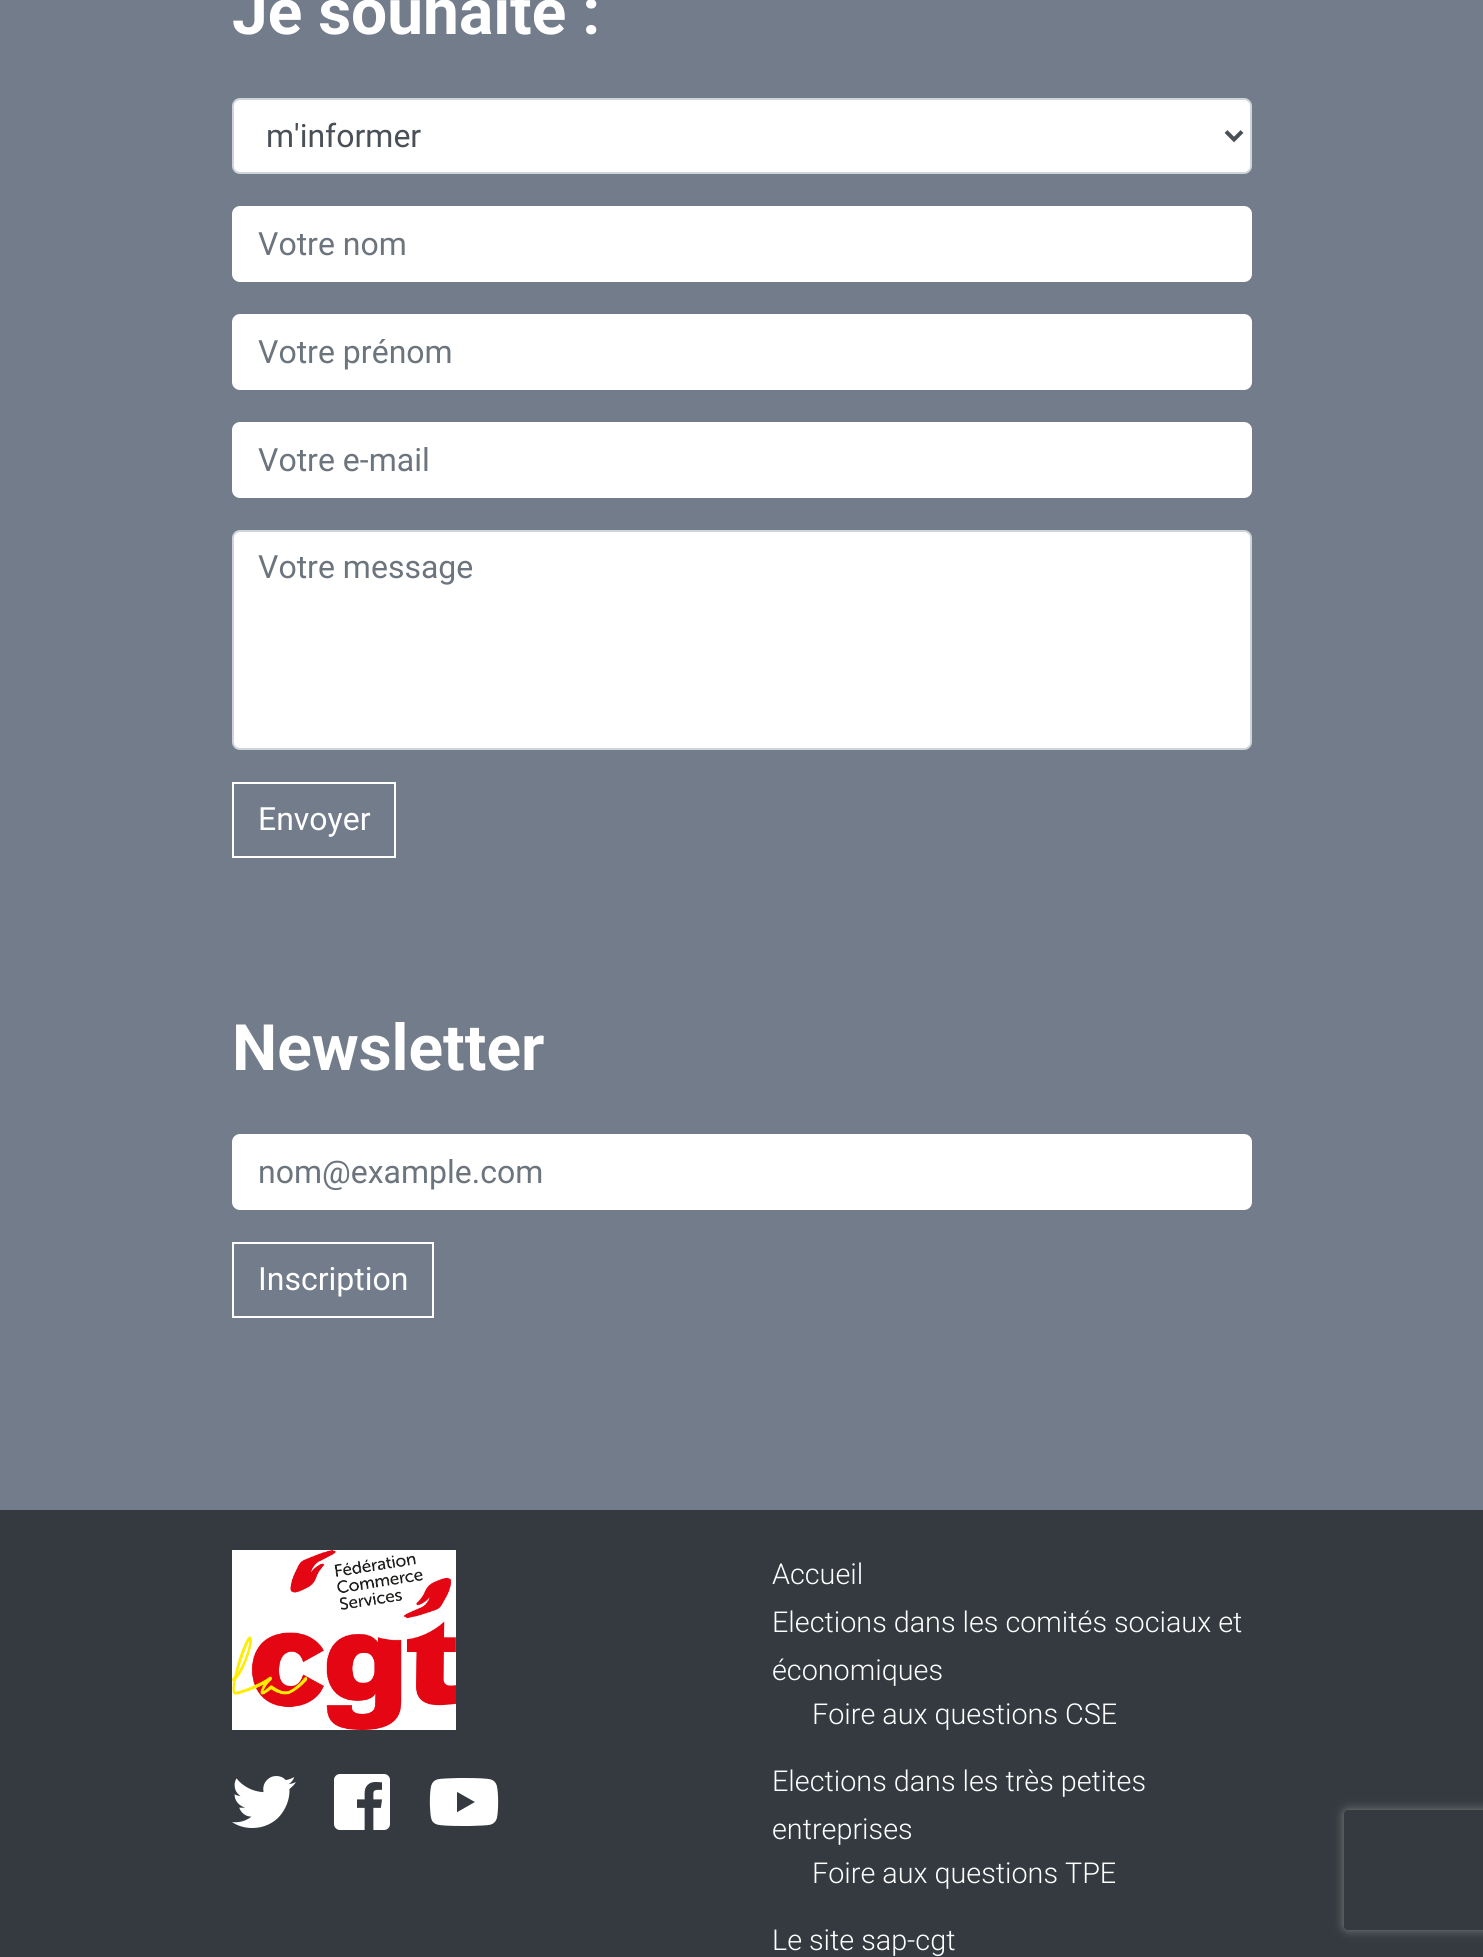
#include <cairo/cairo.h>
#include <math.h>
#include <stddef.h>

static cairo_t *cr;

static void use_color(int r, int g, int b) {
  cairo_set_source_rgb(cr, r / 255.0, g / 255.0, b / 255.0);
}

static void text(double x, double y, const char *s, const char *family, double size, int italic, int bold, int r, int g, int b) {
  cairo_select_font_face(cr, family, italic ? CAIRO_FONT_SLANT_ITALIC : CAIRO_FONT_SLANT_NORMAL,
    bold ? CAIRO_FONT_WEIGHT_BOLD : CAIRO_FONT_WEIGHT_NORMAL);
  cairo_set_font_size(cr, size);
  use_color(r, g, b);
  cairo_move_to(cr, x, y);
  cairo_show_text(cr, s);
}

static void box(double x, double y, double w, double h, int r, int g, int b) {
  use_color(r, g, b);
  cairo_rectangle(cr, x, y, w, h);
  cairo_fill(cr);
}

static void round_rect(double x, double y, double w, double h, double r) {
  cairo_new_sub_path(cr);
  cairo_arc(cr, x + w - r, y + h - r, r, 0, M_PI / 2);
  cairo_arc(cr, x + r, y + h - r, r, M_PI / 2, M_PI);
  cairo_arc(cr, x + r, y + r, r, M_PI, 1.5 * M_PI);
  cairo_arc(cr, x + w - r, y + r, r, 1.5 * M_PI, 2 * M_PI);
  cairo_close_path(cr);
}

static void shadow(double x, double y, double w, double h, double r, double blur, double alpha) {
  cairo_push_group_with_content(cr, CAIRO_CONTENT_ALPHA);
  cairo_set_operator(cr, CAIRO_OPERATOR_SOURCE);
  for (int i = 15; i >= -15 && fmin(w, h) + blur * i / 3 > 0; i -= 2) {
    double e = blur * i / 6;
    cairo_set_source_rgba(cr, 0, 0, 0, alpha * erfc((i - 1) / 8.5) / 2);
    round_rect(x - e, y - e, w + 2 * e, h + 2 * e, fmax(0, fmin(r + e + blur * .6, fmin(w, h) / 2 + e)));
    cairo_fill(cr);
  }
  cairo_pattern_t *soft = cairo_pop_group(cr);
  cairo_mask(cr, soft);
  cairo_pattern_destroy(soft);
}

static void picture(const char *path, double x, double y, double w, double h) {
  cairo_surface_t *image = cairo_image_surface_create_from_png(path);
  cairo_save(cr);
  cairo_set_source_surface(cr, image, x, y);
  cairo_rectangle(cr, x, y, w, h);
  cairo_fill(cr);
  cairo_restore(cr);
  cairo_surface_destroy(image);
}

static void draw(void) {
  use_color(114, 124, 138);
  cairo_paint(cr);
  use_color(255, 255, 255);
  round_rect(233, 99, 1018, 74, 7);
  cairo_fill_preserve(cr);
  use_color(206, 212, 218);
  cairo_stroke(cr);
  cairo_new_path(cr);
  cairo_move_to(cr, 1226, 131.5);
  cairo_line_to(cr, 1234, 139.5);
  cairo_line_to(cr, 1242, 131.5);
  use_color(73, 80, 87);
  cairo_set_line_width(cr, 4);
  cairo_stroke(cr);
  use_color(255, 255, 255);
  round_rect(233, 207, 1018, 74, 7);
  cairo_fill_preserve(cr);
  cairo_set_line_width(cr, 2);
  cairo_stroke(cr);
  round_rect(233, 315, 1018, 74, 7);
  cairo_fill_preserve(cr);
  cairo_stroke(cr);
  round_rect(233, 423, 1018, 74, 7);
  cairo_fill_preserve(cr);
  cairo_stroke(cr);
  round_rect(233, 531, 1018, 218, 7);
  cairo_fill_preserve(cr);
  use_color(206, 212, 218);
  cairo_stroke(cr);
  cairo_rectangle(cr, 233, 783, 162, 74);
  use_color(255, 255, 255);
  cairo_stroke(cr);
  round_rect(233, 1135, 1018, 74, 7);
  cairo_fill_preserve(cr);
  cairo_stroke(cr);
  cairo_rectangle(cr, 233, 1243, 200, 74);
  cairo_stroke(cr);
  box(0, 1510, 1483, 447, 52, 58, 64);
  picture("img_01.png", 232, 1550, 224, 180);
  picture("img_02.png", 232, 1776, 64, 52);
  picture("img_03.png", 334, 1774, 56, 56);
  picture("img_04.png", 429, 1778, 70, 48);
  cairo_save(cr);
  cairo_set_fill_rule(cr, CAIRO_FILL_RULE_EVEN_ODD);
  cairo_new_path(cr);
  cairo_move_to(cr, 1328, 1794);
  cairo_line_to(cr, 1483, 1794);
  cairo_line_to(cr, 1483, 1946);
  cairo_line_to(cr, 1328, 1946);
  cairo_close_path(cr);
  cairo_move_to(cr, 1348, 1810);
  cairo_line_to(cr, 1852, 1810);
  cairo_curve_to(cr, 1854, 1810, 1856, 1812, 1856, 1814);
  cairo_line_to(cr, 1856, 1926);
  cairo_curve_to(cr, 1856, 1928, 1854, 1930, 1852, 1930);
  cairo_line_to(cr, 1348, 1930);
  cairo_curve_to(cr, 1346, 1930, 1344, 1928, 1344, 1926);
  cairo_line_to(cr, 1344, 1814);
  cairo_curve_to(cr, 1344, 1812, 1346, 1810, 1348, 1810);
  cairo_close_path(cr);
  cairo_clip(cr);
  use_color(128, 128, 128);
  shadow(1344, 1810, 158, 120, 4, 5, 1);
  cairo_restore(cr);
  text(232, 34, "Je souhaite :", "Roboto", 64, 0, 1, 255, 255, 255);
  text(266, 147, "m'informer", "Roboto", 32, 0, 0, 73, 80, 87);
  text(258, 255, "Votre nom", "Roboto", 32, 0, 0, 108, 117, 125);
  text(258, 363, "Votre prénom", "Roboto", 32, 0, 0, 108, 117, 125);
  text(258, 471, "Votre e-mail", "Roboto", 32, 0, 0, 108, 117, 125);
  text(258, 578, "Votre message", "Roboto", 32, 0, 0, 108, 117, 125);
  text(258, 830, "Envoyer", "Roboto", 32, 0, 0, 255, 255, 255);
  text(232, 1070, "Newsletter", "Roboto", 64, 0, 1, 255, 255, 255);
  text(258, 1183, "nom@example.com", "Roboto", 32, 0, 0, 108, 117, 125);
  text(258, 1290, "Inscription", "Roboto", 32, 0, 0, 255, 255, 255);
  text(772, 1584, "Accueil", "Roboto Light", 28.75, 0, 0, 255, 255, 255);
  text(772, 1632, "Elections dans les comités sociaux et", "Roboto Light", 28.75, 0, 0, 255, 255, 255);
  text(772, 1680, "économiques", "Roboto Light", 28.75, 0, 0, 255, 255, 255);
  text(812, 1724, "Foire aux questions CSE", "Roboto Light", 28.75, 0, 0, 255, 255, 255);
  text(772, 1791, "Elections dans les très petites", "Roboto Light", 28.75, 0, 0, 255, 255, 255);
  text(772, 1839, "entreprises", "Roboto Light", 28.75, 0, 0, 255, 255, 255);
  text(812, 1883, "Foire aux questions TPE", "Roboto Light", 28.75, 0, 0, 255, 255, 255);
  text(772, 1950, "Le site sap-cgt", "Roboto Light", 28.75, 0, 0, 255, 255, 255);
}

int main(void) {
  cairo_surface_t *surface = cairo_image_surface_create(CAIRO_FORMAT_RGB24, 1483, 1957);
  cr = cairo_create(surface);
  cairo_font_options_t *options = cairo_font_options_create();
  cairo_font_options_set_hint_metrics(options, CAIRO_HINT_METRICS_OFF);
  cairo_font_options_set_hint_style(options, CAIRO_HINT_STYLE_NONE);
  cairo_set_font_options(cr, options);
  cairo_set_miter_limit(cr, 4);
  draw();
  cairo_surface_write_to_png(surface, "out.png");
  cairo_font_options_destroy(options);
  cairo_destroy(cr);
  cairo_surface_destroy(surface);
  return 0;
}
